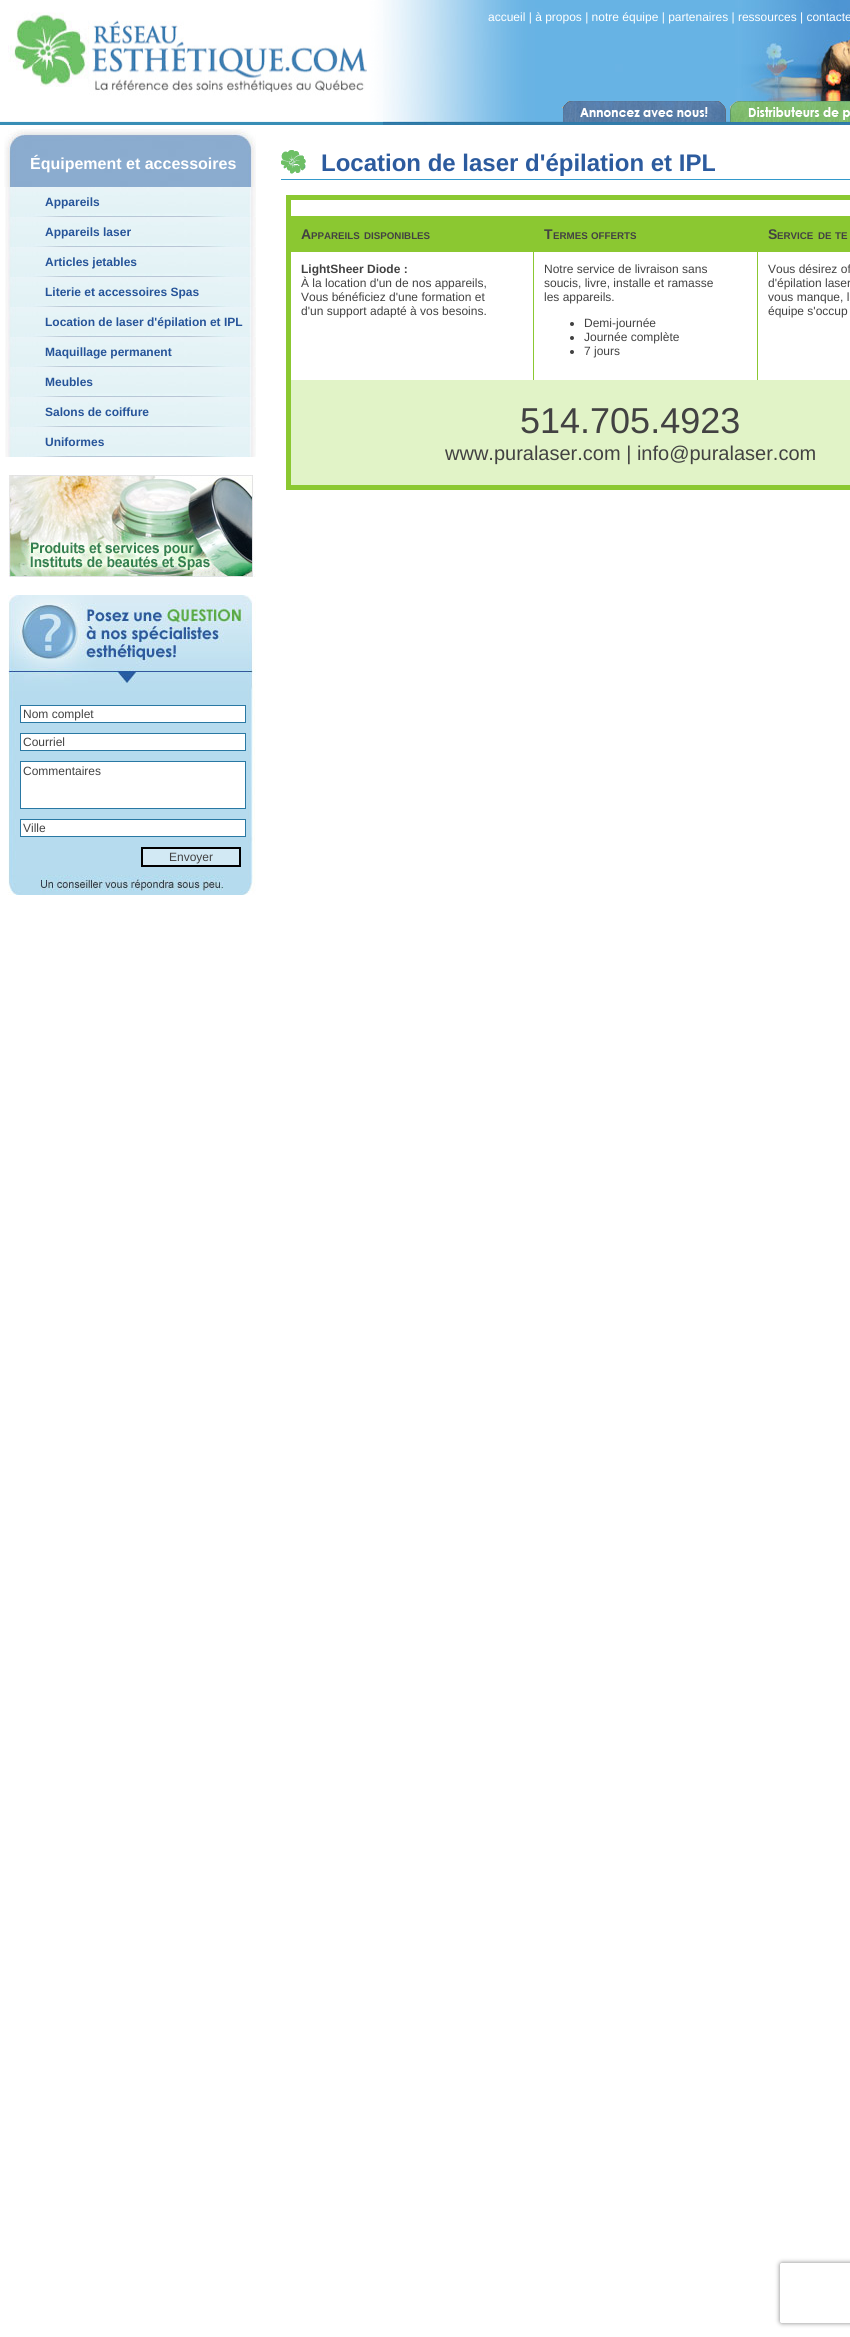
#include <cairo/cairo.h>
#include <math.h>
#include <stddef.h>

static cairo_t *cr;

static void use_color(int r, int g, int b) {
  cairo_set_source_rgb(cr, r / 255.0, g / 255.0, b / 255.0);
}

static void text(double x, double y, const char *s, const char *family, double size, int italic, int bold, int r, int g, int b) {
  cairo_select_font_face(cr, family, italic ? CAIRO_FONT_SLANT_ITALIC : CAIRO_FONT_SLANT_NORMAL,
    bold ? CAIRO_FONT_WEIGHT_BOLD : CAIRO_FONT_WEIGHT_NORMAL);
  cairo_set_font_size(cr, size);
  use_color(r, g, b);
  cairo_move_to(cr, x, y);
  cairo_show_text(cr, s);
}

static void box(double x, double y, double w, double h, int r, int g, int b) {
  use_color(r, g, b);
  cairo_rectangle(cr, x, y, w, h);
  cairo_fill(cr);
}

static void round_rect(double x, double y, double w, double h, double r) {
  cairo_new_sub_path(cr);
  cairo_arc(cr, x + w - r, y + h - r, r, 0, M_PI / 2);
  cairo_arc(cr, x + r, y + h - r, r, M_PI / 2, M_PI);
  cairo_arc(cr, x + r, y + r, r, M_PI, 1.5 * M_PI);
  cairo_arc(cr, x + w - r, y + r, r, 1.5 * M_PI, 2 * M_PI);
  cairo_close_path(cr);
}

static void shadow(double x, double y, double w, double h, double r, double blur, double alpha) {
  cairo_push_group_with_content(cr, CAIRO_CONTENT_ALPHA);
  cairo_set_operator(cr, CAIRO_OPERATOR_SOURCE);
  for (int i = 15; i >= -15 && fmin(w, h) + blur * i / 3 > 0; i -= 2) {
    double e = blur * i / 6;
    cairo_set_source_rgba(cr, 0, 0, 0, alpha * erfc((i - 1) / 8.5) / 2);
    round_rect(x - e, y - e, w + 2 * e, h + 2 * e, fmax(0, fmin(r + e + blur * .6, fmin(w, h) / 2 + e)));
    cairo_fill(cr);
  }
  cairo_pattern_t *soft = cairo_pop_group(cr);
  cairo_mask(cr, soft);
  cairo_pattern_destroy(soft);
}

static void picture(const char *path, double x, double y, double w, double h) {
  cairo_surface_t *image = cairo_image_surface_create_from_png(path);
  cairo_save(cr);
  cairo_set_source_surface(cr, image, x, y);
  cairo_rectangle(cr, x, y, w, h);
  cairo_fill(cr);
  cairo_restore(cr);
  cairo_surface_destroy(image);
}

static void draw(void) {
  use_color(255, 255, 255);
  cairo_paint(cr);
  picture("img_01.png", 0, 0, 383, 125);
  picture("img_02.png", 383, 0, 467, 125);
  picture("img_03.png", 562, 101, 164, 21);
  picture("img_04.png", 730, 101, 120, 21);
  picture("img_05.png", 4, 129, 252, 58);
  picture("img_06.png", 5, 187, 251, 30);
  picture("img_06.png", 5, 217, 251, 30);
  picture("img_06.png", 5, 247, 251, 30);
  picture("img_06.png", 5, 277, 251, 30);
  picture("img_06.png", 5, 307, 251, 30);
  picture("img_06.png", 5, 337, 251, 30);
  picture("img_06.png", 5, 367, 251, 30);
  picture("img_06.png", 5, 397, 251, 30);
  picture("img_06.png", 5, 427, 251, 30);
  picture("img_07.png", 8, 475, 248, 102);
  picture("img_08.png", 8, 595, 248, 300);
  use_color(255, 255, 255);
  cairo_rectangle(cr, 20.5, 705.5, 225, 17);
  cairo_fill_preserve(cr);
  use_color(41, 120, 163);
  cairo_set_line_width(cr, 1);
  cairo_stroke(cr);
  use_color(255, 255, 255);
  cairo_rectangle(cr, 20.5, 733.5, 225, 17);
  cairo_fill_preserve(cr);
  use_color(41, 120, 163);
  cairo_stroke(cr);
  use_color(255, 255, 255);
  cairo_rectangle(cr, 20.5, 761.5, 225, 47);
  cairo_fill_preserve(cr);
  use_color(41, 120, 163);
  cairo_stroke(cr);
  use_color(255, 255, 255);
  cairo_rectangle(cr, 20.5, 819.5, 225, 17);
  cairo_fill_preserve(cr);
  use_color(41, 120, 163);
  cairo_stroke(cr);
  use_color(210, 233, 244);
  cairo_rectangle(cr, 142, 848, 98, 18);
  cairo_fill_preserve(cr);
  use_color(0, 0, 0);
  cairo_set_line_width(cr, 2);
  cairo_stroke(cr);
  picture("img_09.png", 281, 150, 25, 24);
  box(281, 179, 569, 1, 51, 153, 204);
  cairo_rectangle(cr, 288.5, 197.5, 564, 290);
  use_color(139, 200, 49);
  cairo_set_line_width(cr, 5);
  cairo_stroke(cr);
  box(291, 216, 559, 36, 139, 200, 49);
  box(533, 252, 1, 128, 139, 200, 49);
  box(757, 252, 1, 128, 139, 200, 49);
  use_color(66, 66, 66);
  cairo_arc(cr, 572, 324, 2, 0, 2 * M_PI);
  cairo_fill(cr);
  cairo_arc(cr, 572, 338, 2, 0, 2 * M_PI);
  cairo_fill(cr);
  cairo_arc(cr, 572, 352, 2, 0, 2 * M_PI);
  cairo_fill(cr);
  box(291, 380, 559, 105, 225, 243, 199);
  cairo_save(cr);
  cairo_set_fill_rule(cr, CAIRO_FILL_RULE_EVEN_ODD);
  cairo_new_path(cr);
  cairo_move_to(cr, 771, 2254);
  cairo_line_to(cr, 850, 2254);
  cairo_line_to(cr, 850, 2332);
  cairo_line_to(cr, 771, 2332);
  cairo_close_path(cr);
  cairo_move_to(cr, 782, 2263);
  cairo_line_to(cr, 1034, 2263);
  cairo_curve_to(cr, 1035, 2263, 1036, 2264, 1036, 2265);
  cairo_line_to(cr, 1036, 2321);
  cairo_curve_to(cr, 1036, 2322, 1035, 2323, 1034, 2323);
  cairo_line_to(cr, 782, 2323);
  cairo_curve_to(cr, 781, 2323, 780, 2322, 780, 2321);
  cairo_line_to(cr, 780, 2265);
  cairo_curve_to(cr, 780, 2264, 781, 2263, 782, 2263);
  cairo_close_path(cr);
  cairo_clip(cr);
  use_color(128, 128, 128);
  shadow(780, 2263, 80, 60, 2, 2.5, 1);
  cairo_restore(cr);
  text(488, 21, "accueil | à propos | notre équipe | partenaires | ressources | contacte", "Liberation Sans", 12, 0, 0, 255, 255, 255);
  text(30, 169, "Équipement et accessoires", "Liberation Sans", 16, 0, 1, 255, 255, 255);
  text(45, 206, "Appareils", "Liberation Sans", 12, 0, 1, 38, 84, 153);
  text(45, 236, "Appareils laser", "Liberation Sans", 12, 0, 1, 38, 84, 153);
  text(45, 266, "Articles jetables", "Liberation Sans", 12, 0, 1, 38, 84, 153);
  text(45, 296, "Literie et accessoires Spas", "Liberation Sans", 12, 0, 1, 38, 84, 153);
  text(45, 326, "Location de laser d'épilation et IPL", "Liberation Sans", 12, 0, 1, 38, 84, 153);
  text(45, 356, "Maquillage permanent", "Liberation Sans", 12, 0, 1, 38, 84, 153);
  text(45, 386, "Meubles", "Liberation Sans", 12, 0, 1, 38, 84, 153);
  text(45, 416, "Salons de coiffure", "Liberation Sans", 12, 0, 1, 38, 84, 153);
  text(45, 446, "Uniformes", "Liberation Sans", 12, 0, 1, 38, 84, 153);
  text(23, 718, "Nom complet", "Liberation Sans", 12, 0, 0, 66, 66, 66);
  text(23, 746, "Courriel", "Liberation Sans", 12, 0, 0, 66, 66, 66);
  text(23, 775, "Commentaires", "Liberation Sans", 12, 0, 0, 66, 66, 66);
  text(23, 832, "Ville", "Liberation Sans", 12, 0, 0, 66, 66, 66);
  text(169, 861, "Envoyer", "Liberation Sans", 12, 0, 0, 66, 66, 66);
  text(321, 171, "Location de laser d'épilation et IPL", "Liberation Sans", 24, 0, 1, 44, 91, 158);
  text(301, 239, "A", "Liberation Sans", 14, 0, 1, 66, 66, 66);
  text(311, 239, "PPAREILS", "Liberation Sans", 9.75, 0, 1, 66, 66, 66);
  text(364, 239, "DISPONIBLES", "Liberation Sans", 9.75, 0, 1, 66, 66, 66);
  text(544, 239, "T", "Liberation Sans", 14, 0, 1, 66, 66, 66);
  text(553, 239, "ERMES", "Liberation Sans", 9.75, 0, 1, 66, 66, 66);
  text(591, 239, "OFFERTS", "Liberation Sans", 9.75, 0, 1, 66, 66, 66);
  text(768, 239, "S", "Liberation Sans", 14, 0, 1, 66, 66, 66);
  text(777, 239, "ERVICE", "Liberation Sans", 9.75, 0, 1, 66, 66, 66);
  text(818, 239, "DE", "Liberation Sans", 9.75, 0, 1, 66, 66, 66);
  text(835, 239, "TE", "Liberation Sans", 9.75, 0, 1, 66, 66, 66);
  text(301, 273, "LightSheer Diode :", "Liberation Sans", 12, 0, 1, 66, 66, 66);
  text(301, 287, "À la location d'un de nos appareils,", "Liberation Sans", 12, 0, 0, 66, 66, 66);
  text(301, 301, "Vous bénéficiez d'une formation et", "Liberation Sans", 12, 0, 0, 66, 66, 66);
  text(301, 315, "d'un support adapté à vos besoins.", "Liberation Sans", 12, 0, 0, 66, 66, 66);
  text(544, 273, "Notre service de livraison sans", "Liberation Sans", 12, 0, 0, 66, 66, 66);
  text(544, 287, "soucis, livre, installe et ramasse", "Liberation Sans", 12, 0, 0, 66, 66, 66);
  text(544, 301, "les appareils.", "Liberation Sans", 12, 0, 0, 66, 66, 66);
  text(584, 327, "Demi-journée", "Liberation Sans", 12, 0, 0, 66, 66, 66);
  text(584, 341, "Journée complète", "Liberation Sans", 12, 0, 0, 66, 66, 66);
  text(584, 355, "7 jours", "Liberation Sans", 12, 0, 0, 66, 66, 66);
  text(768, 273, "Vous désirez of", "Liberation Sans", 12, 0, 0, 66, 66, 66);
  text(768, 287, "d'épilation laser", "Liberation Sans", 12, 0, 0, 66, 66, 66);
  text(768, 301, "vous manque, l", "Liberation Sans", 12, 0, 0, 66, 66, 66);
  text(768, 315, "équipe s'occup", "Liberation Sans", 12, 0, 0, 66, 66, 66);
  text(520, 433, "514.705.4923", "Liberation Sans", 36, 0, 0, 66, 66, 66);
  text(445, 460, "www.puralaser.com | info@puralaser.com", "Liberation Sans", 20, 0, 0, 66, 66, 66);
}

int main(void) {
  cairo_surface_t *surface = cairo_image_surface_create(CAIRO_FORMAT_RGB24, 850, 2337);
  cr = cairo_create(surface);
  cairo_font_options_t *options = cairo_font_options_create();
  cairo_font_options_set_hint_metrics(options, CAIRO_HINT_METRICS_OFF);
  cairo_font_options_set_hint_style(options, CAIRO_HINT_STYLE_NONE);
  cairo_set_font_options(cr, options);
  cairo_set_miter_limit(cr, 4);
  draw();
  cairo_surface_write_to_png(surface, "out.png");
  cairo_font_options_destroy(options);
  cairo_destroy(cr);
  cairo_surface_destroy(surface);
  return 0;
}
